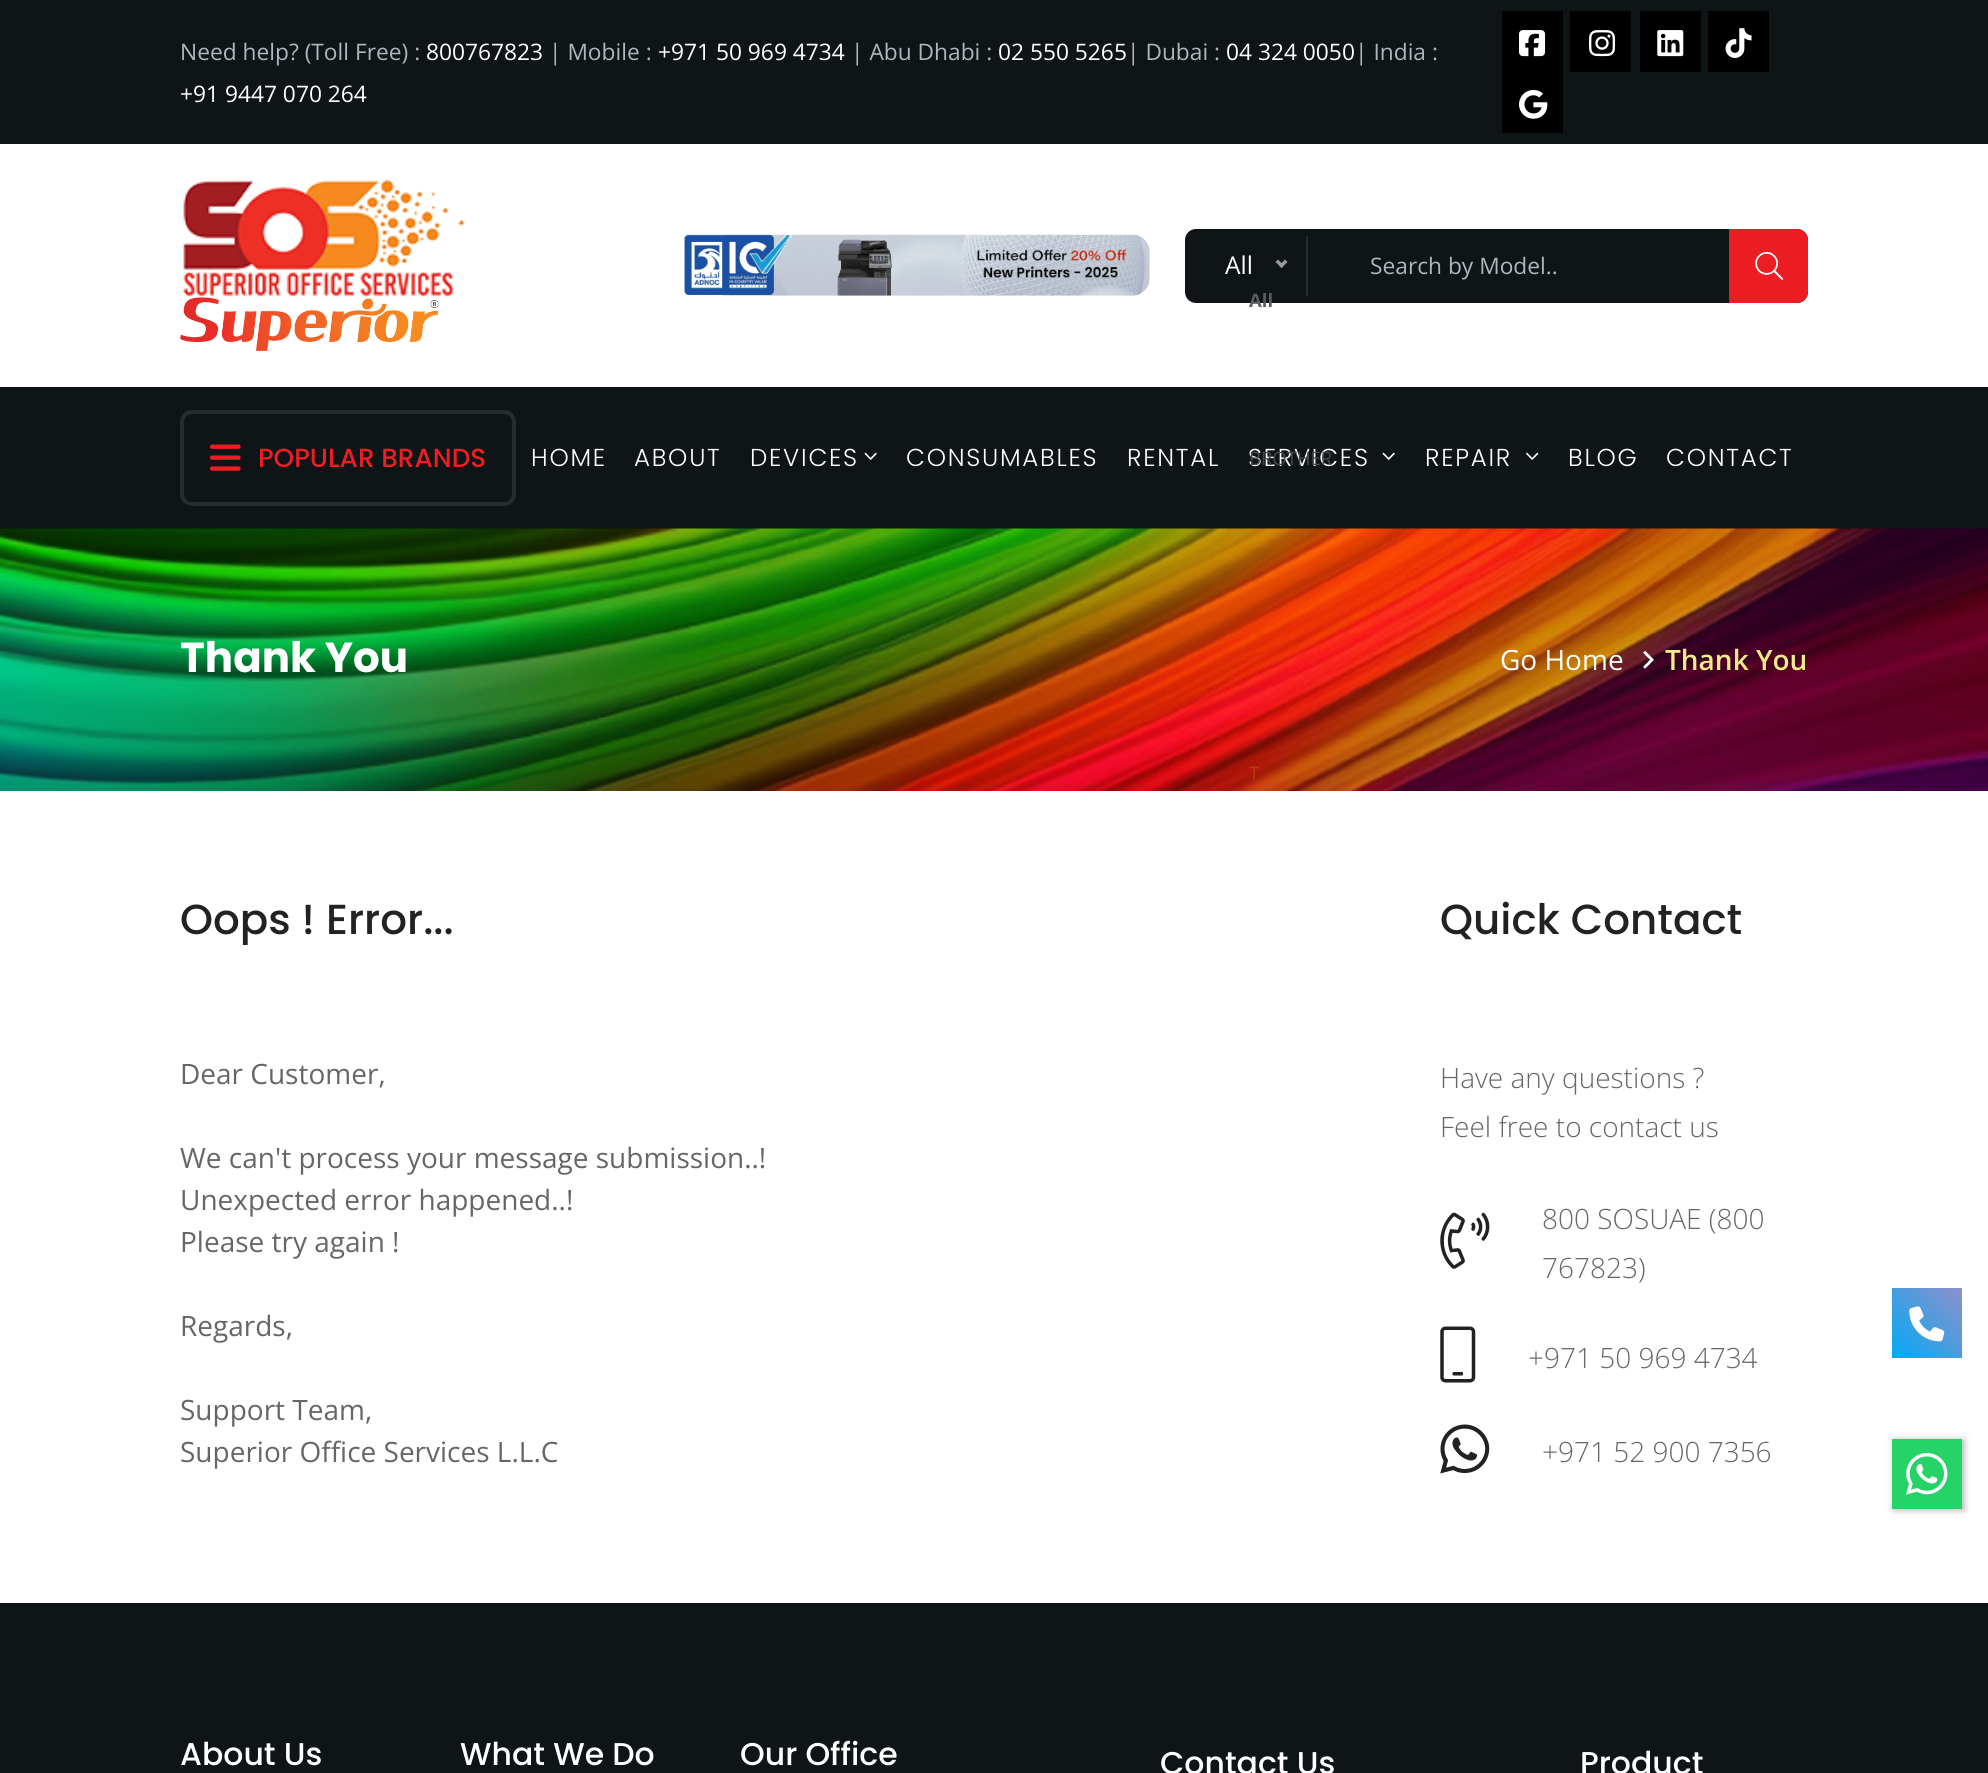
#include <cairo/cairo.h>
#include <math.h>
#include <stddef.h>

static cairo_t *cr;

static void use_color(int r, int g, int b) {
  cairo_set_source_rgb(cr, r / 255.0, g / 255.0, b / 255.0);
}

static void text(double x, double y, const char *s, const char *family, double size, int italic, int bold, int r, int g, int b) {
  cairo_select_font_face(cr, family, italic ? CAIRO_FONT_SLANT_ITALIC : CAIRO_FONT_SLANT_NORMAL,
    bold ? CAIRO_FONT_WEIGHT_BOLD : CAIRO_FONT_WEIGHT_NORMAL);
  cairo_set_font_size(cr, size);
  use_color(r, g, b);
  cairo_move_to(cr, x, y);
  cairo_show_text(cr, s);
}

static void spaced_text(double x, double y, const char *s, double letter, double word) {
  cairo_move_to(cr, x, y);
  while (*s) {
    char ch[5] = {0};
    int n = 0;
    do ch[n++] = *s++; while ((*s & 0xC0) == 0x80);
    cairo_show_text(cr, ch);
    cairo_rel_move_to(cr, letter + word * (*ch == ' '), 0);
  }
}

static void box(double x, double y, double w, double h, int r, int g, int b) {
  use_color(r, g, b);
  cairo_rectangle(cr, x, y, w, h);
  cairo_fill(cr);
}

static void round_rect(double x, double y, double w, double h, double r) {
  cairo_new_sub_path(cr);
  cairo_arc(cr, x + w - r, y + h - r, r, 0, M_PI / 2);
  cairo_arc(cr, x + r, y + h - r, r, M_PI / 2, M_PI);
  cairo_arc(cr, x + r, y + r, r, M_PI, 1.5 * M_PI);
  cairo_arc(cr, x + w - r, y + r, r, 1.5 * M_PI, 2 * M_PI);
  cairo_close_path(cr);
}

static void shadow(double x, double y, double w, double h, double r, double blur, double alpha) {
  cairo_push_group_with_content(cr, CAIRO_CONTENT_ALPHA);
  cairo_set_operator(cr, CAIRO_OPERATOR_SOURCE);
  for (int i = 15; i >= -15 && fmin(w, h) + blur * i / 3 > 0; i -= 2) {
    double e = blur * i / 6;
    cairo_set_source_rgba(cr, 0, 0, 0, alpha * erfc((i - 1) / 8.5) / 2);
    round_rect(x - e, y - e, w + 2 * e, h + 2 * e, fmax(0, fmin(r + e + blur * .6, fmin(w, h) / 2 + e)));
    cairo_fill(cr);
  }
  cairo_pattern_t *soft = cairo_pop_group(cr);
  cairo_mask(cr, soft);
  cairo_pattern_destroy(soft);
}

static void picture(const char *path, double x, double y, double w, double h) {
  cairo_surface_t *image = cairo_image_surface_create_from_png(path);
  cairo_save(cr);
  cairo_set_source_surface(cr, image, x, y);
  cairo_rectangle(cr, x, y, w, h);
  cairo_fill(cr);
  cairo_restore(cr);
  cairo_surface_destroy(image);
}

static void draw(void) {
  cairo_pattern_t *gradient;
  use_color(255, 255, 255);
  cairo_paint(cr);
  box(0, 0, 1988, 144, 15, 20, 23);
  box(1502, 11, 61, 122, 0, 0, 0);
  picture("img_01.png", 1519, 30, 27, 27);
  box(1570, 11, 61, 61, 0, 0, 0);
  picture("img_02.png", 1589, 30, 27, 27);
  box(1640, 11, 61, 61, 0, 0, 0);
  picture("img_03.png", 1657, 30, 27, 27);
  box(1708, 11, 61, 61, 0, 0, 0);
  picture("img_04.png", 1725, 28, 27, 30);
  picture("img_05.png", 1519, 89, 29, 30);
  picture("img_06.png", 183, 179, 282, 118);
  picture("img_07.png", 180, 297, 259, 54);
  picture("img_08.png", 684, 234, 466, 62);
  use_color(15, 20, 23);
  round_rect(1185, 229, 623, 74, 11);
  cairo_fill(cr);
  box(1306, 236, 2, 60, 39, 44, 47);
  use_color(153, 153, 153);
  cairo_new_path(cr);
  cairo_move_to(cr, 1285, 259.5);
  cairo_line_to(cr, 1287.5, 262);
  cairo_line_to(cr, 1281.5, 268);
  cairo_line_to(cr, 1279, 265.5);
  cairo_close_path(cr);
  cairo_fill(cr);
  cairo_new_path(cr);
  cairo_move_to(cr, 1278, 259.5);
  cairo_line_to(cr, 1284, 265.5);
  cairo_line_to(cr, 1281.5, 268);
  cairo_line_to(cr, 1275.5, 262);
  cairo_close_path(cr);
  cairo_fill(cr);
  use_color(237, 29, 36);
  cairo_new_path(cr);
  cairo_move_to(cr, 1729, 229);
  cairo_line_to(cr, 1797, 229);
  cairo_curve_to(cr, 1803, 229, 1808, 234, 1808, 240);
  cairo_line_to(cr, 1808, 292);
  cairo_curve_to(cr, 1808, 298, 1803, 303, 1797, 303);
  cairo_line_to(cr, 1729, 303);
  cairo_close_path(cr);
  cairo_fill(cr);
  picture("img_09.png", 1755, 252, 29, 28);
  box(0, 387, 1988, 142, 15, 20, 23);
  round_rect(182, 412, 332, 92, 10);
  use_color(39, 44, 47);
  cairo_set_line_width(cr, 4);
  cairo_stroke(cr);
  picture("img_10.png", 210, 444, 31, 27);
  picture("img_11.png", 864, 452, 13, 8);
  picture("img_11.png", 1382, 452, 13, 8);
  picture("img_12.png", 1526, 452, 13, 8);
  picture("img_13.png", 0, 528, 1988, 263);
  picture("img_14.png", 1643, 651, 11, 18);
  picture("img_15.png", 1440, 1212, 50, 57);
  picture("img_16.png", 1440, 1326, 36, 57);
  picture("img_17.png", 1440, 1424, 50, 50);
  gradient = cairo_pattern_create_linear(1963, 1289, 1891, 1357);
  cairo_pattern_add_color_stop_rgba(gradient, 0, 0.561, 0.565, 0.792, 1);
  cairo_pattern_add_color_stop_rgba(gradient, 1, 0.012, 0.663, 0.957, 1);
  cairo_set_source(cr, gradient);
  cairo_pattern_destroy(gradient);
  cairo_rectangle(cr, 1892, 1288, 70, 70);
  cairo_fill(cr);
  picture("img_18.png", 1909, 1306, 36, 36);
  use_color(60, 60, 60);
  shadow(1894, 1440, 70, 70, 0, 3.5, 0.4);
  box(1892, 1439, 70, 70, 37, 211, 102);
  picture("img_19.png", 1906, 1453, 42, 42);
  box(0, 1603, 1988, 170, 15, 20, 23);
  text(180, 60, "Need help? (Toll Free) :", "Open Sans", 22.75, 0, 0, 176, 182, 189);
  text(426, 60, "800767823", "Open Sans", 22.75, 0, 0, 255, 255, 255);
  text(549, 60, "| Mobile :", "Open Sans", 22.75, 0, 0, 176, 182, 189);
  text(658, 60, "+971 50 969 4734", "Open Sans", 22.75, 0, 0, 255, 255, 255);
  text(851, 60, "| Abu Dhabi :", "Open Sans", 22.75, 0, 0, 176, 182, 189);
  text(998, 60, "02 550 5265", "Open Sans", 22.75, 0, 0, 255, 255, 255);
  text(1127, 60, "| Dubai :", "Open Sans", 22.75, 0, 0, 176, 182, 189);
  text(1226, 60, "04 324 0050", "Open Sans", 22.75, 0, 0, 255, 255, 255);
  text(1355, 60, "| India :", "Open Sans", 22.75, 0, 0, 176, 182, 189);
  text(180, 102, "+91 9447 070 264", "Open Sans", 22.75, 0, 0, 255, 255, 255);
  text(1225, 274, "All", "Open Sans", 24.5, 0, 0, 255, 255, 255);
  text(1249, 307, "All", "Open Sans", 18.5, 0, 1, 89, 93, 95);
  text(1249, 780, "T", "Open Sans", 18.5, 0, 0, 177, 64, 11);
  text(1370, 274, "Search by Model..", "Open Sans", 22.75, 0, 0, 176, 182, 189);
  text(258, 467, "POPULAR BRANDS", "Poppins Medium", 26.25, 0, 0, 237, 29, 36);
  cairo_select_font_face(cr, "Poppins Light", CAIRO_FONT_SLANT_NORMAL, CAIRO_FONT_WEIGHT_NORMAL);
  cairo_set_font_size(cr, 24.5);
  use_color(255, 255, 255);
  spaced_text(531, 466, "HOME", 1.75, 0);
  spaced_text(634, 466, "ABOUT", 1.75, 0);
  spaced_text(750, 466, "DEVICES", 1.75, 0);
  spaced_text(906, 466, "CONSUMABLES", 1.75, 0);
  spaced_text(1127, 466, "RENTAL", 1.75, 0);
  spaced_text(1248, 466, "SERVICES", 1.75, 0);
  text(1249, 465, "BROTHER", "Open Sans", 18.5, 0, 0, 69, 73, 75);
  cairo_select_font_face(cr, "Poppins Light", CAIRO_FONT_SLANT_NORMAL, CAIRO_FONT_WEIGHT_NORMAL);
  cairo_set_font_size(cr, 24.5);
  use_color(255, 255, 255);
  spaced_text(1425, 466, "REPAIR", 1.75, 0);
  spaced_text(1568, 466, "BLOG", 1.75, 0);
  spaced_text(1666, 466, "CONTACT", 1.75, 0);
  text(180, 672, "Thank You", "Poppins", 42, 0, 1, 255, 255, 255);
  text(1500, 670, "Go Home", "Open Sans", 28, 0, 0, 255, 255, 255);
  text(1665, 670, "Thank You", "Open Sans SemiBold", 28, 0, 0, 243, 235, 139);
  text(180, 934, "Oops ! Error...", "Poppins Medium", 42, 0, 0, 34, 34, 34);
  text(180, 1084, "Dear Customer,", "Open Sans", 28, 0, 0, 102, 102, 102);
  text(180, 1168, "We can't process your message submission..!", "Open Sans", 28, 0, 0, 102, 102, 102);
  text(180, 1210, "Unexpected error happened..!", "Open Sans", 28, 0, 0, 102, 102, 102);
  text(180, 1252, "Please try again !", "Open Sans", 28, 0, 0, 102, 102, 102);
  text(180, 1336, "Regards,", "Open Sans", 28, 0, 0, 102, 102, 102);
  text(180, 1420, "Support Team,", "Open Sans", 28, 0, 0, 102, 102, 102);
  text(180, 1462, "Superior Office Services L.L.C", "Open Sans", 28, 0, 0, 102, 102, 102);
  text(1440, 934, "Quick Contact", "Poppins Medium", 42, 0, 0, 34, 34, 34);
  text(1440, 1088, "Have any questions ?", "Open Sans Light", 28, 0, 0, 102, 102, 102);
  text(1440, 1137, "Feel free to contact us", "Open Sans Light", 28, 0, 0, 102, 102, 102);
  text(1542, 1229, "800 SOSUAE (800", "Open Sans Light", 28, 0, 0, 102, 102, 102);
  text(1542, 1278, "767823)", "Open Sans Light", 28, 0, 0, 102, 102, 102);
  text(1528, 1368, "+971 50 969 4734", "Open Sans Light", 28, 0, 0, 102, 102, 102);
  text(1542, 1462, "+971 52 900 7356", "Open Sans Light", 28, 0, 0, 102, 102, 102);
  text(180, 1765, "About Us", "Poppins Medium", 31.5, 0, 0, 255, 255, 255);
  text(460, 1765, "What We Do", "Poppins Medium", 31.5, 0, 0, 255, 255, 255);
  text(740, 1765, "Our Office", "Poppins Medium", 31.5, 0, 0, 255, 255, 255);
  text(1160, 1774, "Contact Us", "Poppins Medium", 31.5, 0, 0, 255, 255, 255);
  text(1580, 1774, "Product", "Poppins Medium", 31.5, 0, 0, 255, 255, 255);
}

int main(void) {
  cairo_surface_t *surface = cairo_image_surface_create(CAIRO_FORMAT_RGB24, 1988, 1773);
  cr = cairo_create(surface);
  cairo_font_options_t *options = cairo_font_options_create();
  cairo_font_options_set_hint_metrics(options, CAIRO_HINT_METRICS_OFF);
  cairo_font_options_set_hint_style(options, CAIRO_HINT_STYLE_NONE);
  cairo_set_font_options(cr, options);
  cairo_set_miter_limit(cr, 4);
  draw();
  cairo_surface_write_to_png(surface, "out.png");
  cairo_font_options_destroy(options);
  cairo_destroy(cr);
  cairo_surface_destroy(surface);
  return 0;
}
